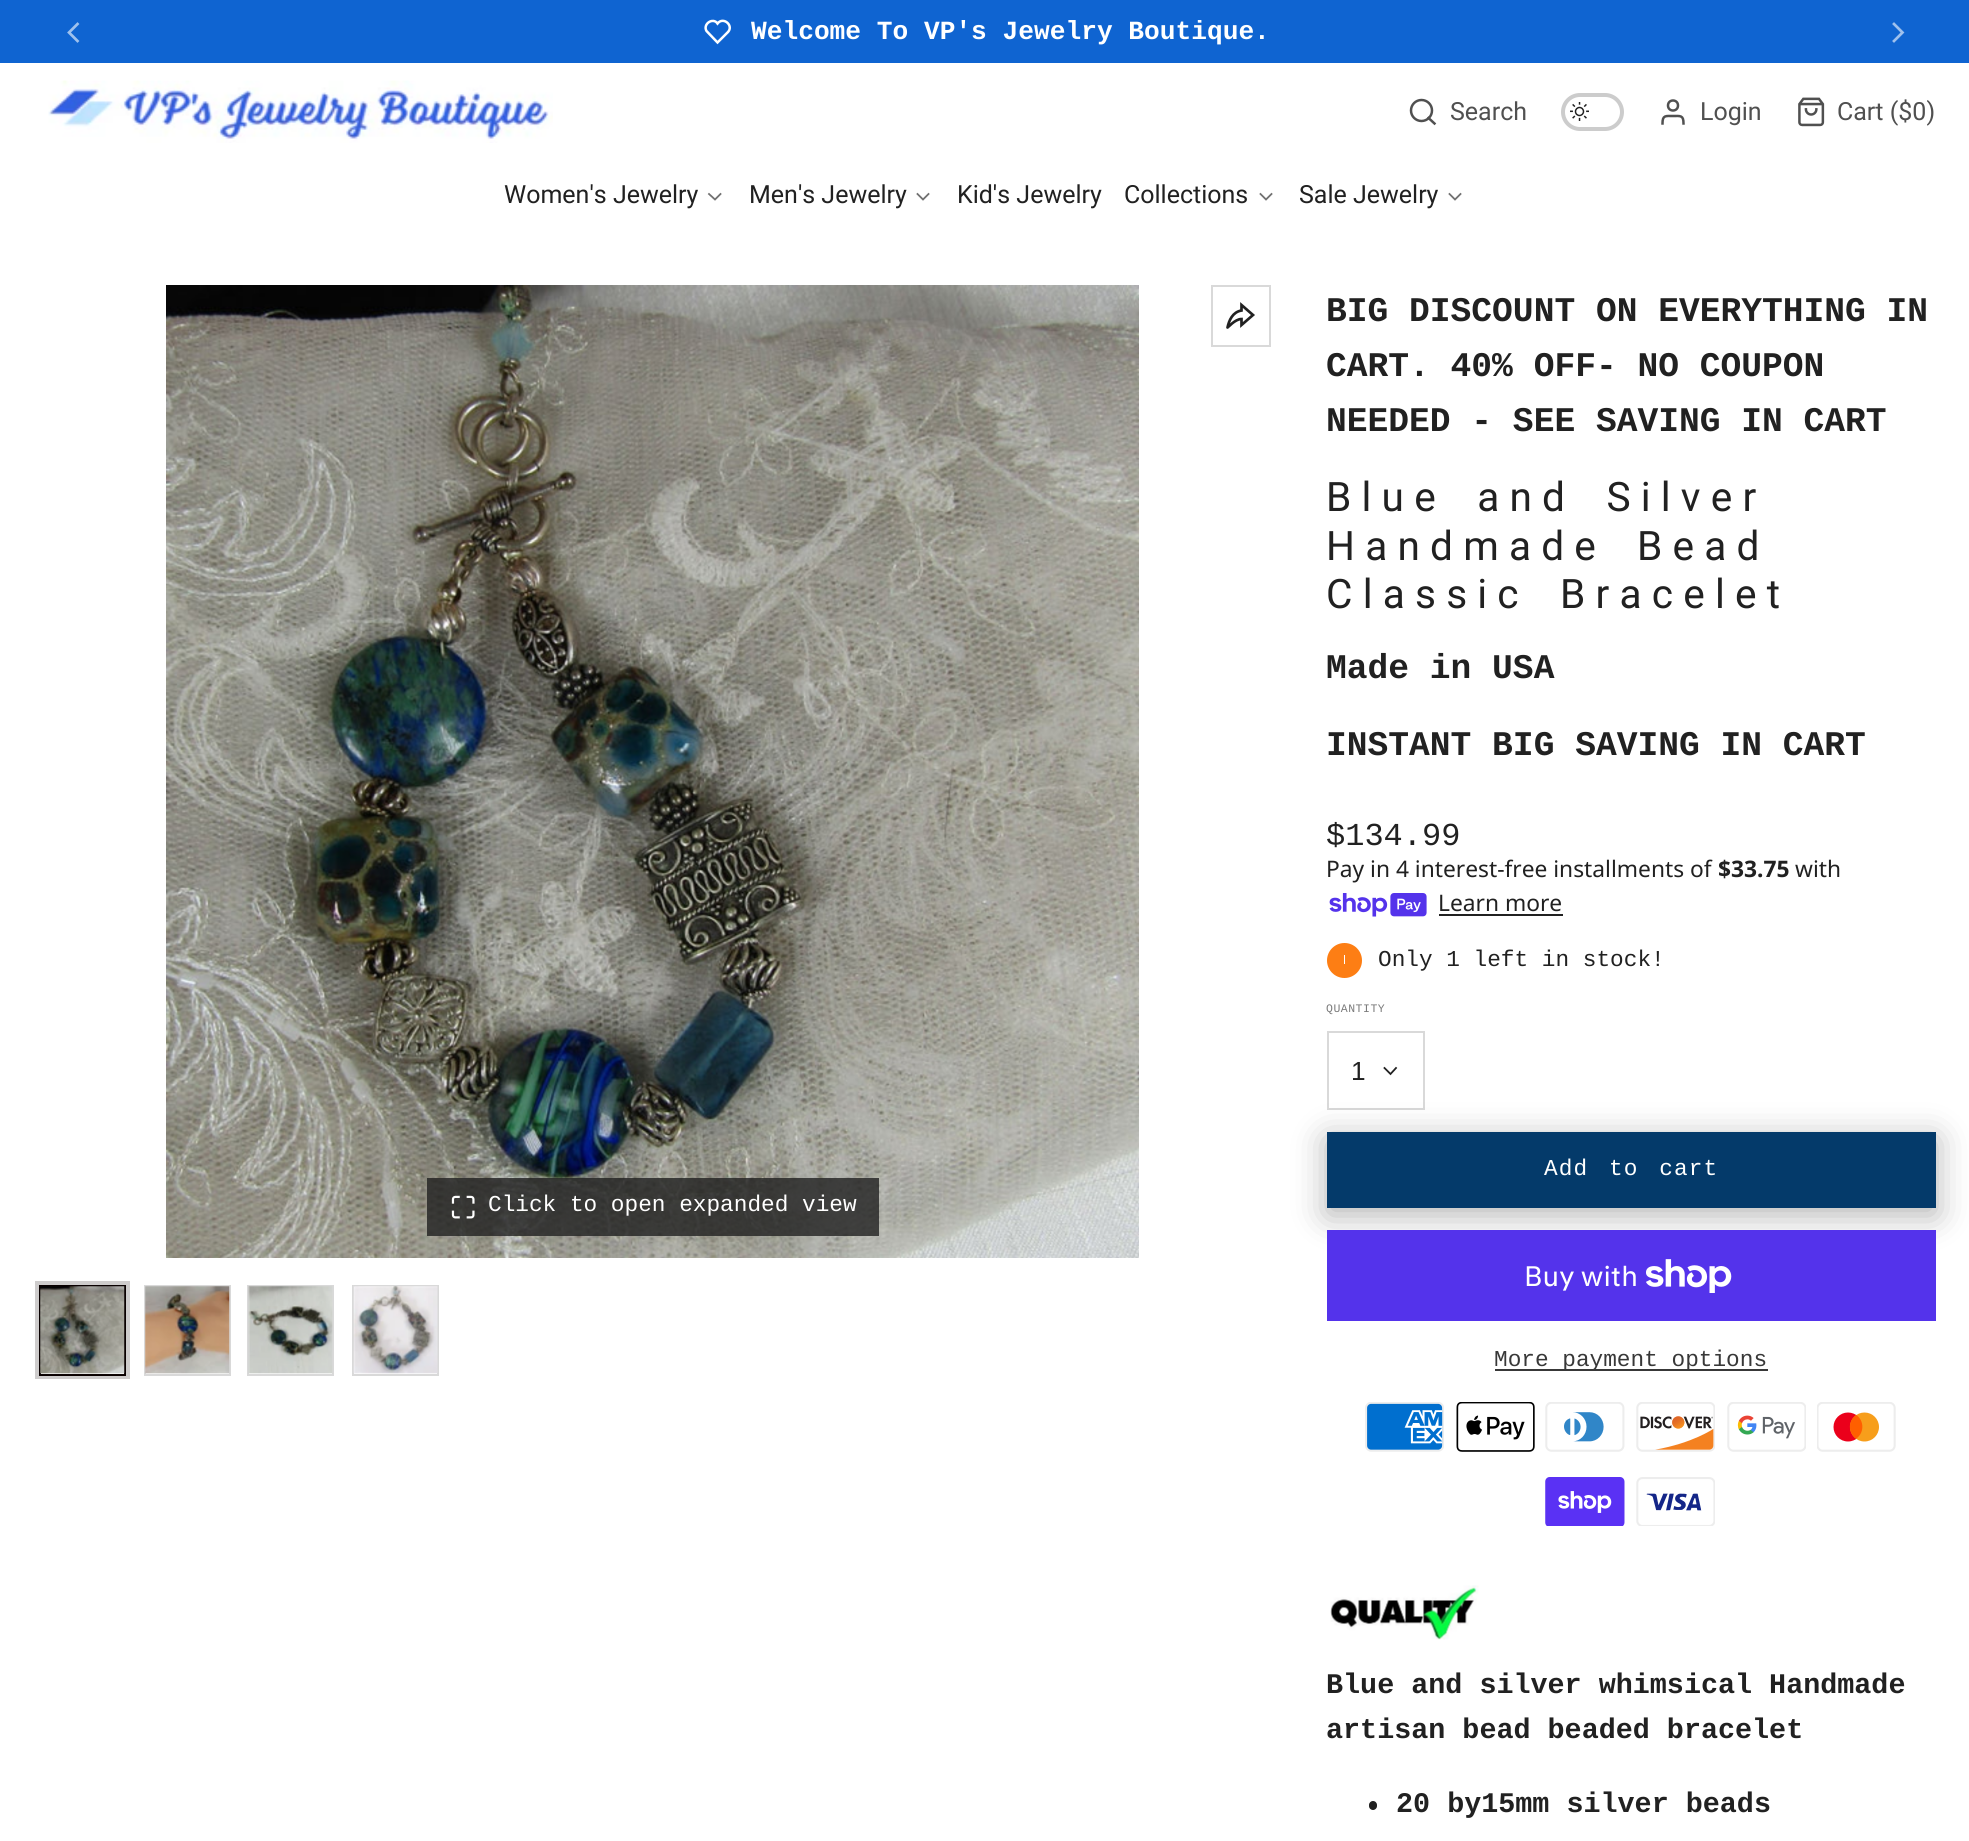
#include <cairo/cairo.h>
#include <math.h>
#include <stddef.h>

static cairo_t *cr;

static void use_color(int r, int g, int b) {
  cairo_set_source_rgb(cr, r / 255.0, g / 255.0, b / 255.0);
}

static void text(double x, double y, const char *s, const char *family, double size, int italic, int bold, int r, int g, int b) {
  cairo_select_font_face(cr, family, italic ? CAIRO_FONT_SLANT_ITALIC : CAIRO_FONT_SLANT_NORMAL,
    bold ? CAIRO_FONT_WEIGHT_BOLD : CAIRO_FONT_WEIGHT_NORMAL);
  cairo_set_font_size(cr, size);
  use_color(r, g, b);
  cairo_move_to(cr, x, y);
  cairo_show_text(cr, s);
}

static void spaced_text(double x, double y, const char *s, double letter, double word) {
  cairo_move_to(cr, x, y);
  while (*s) {
    char ch[5] = {0};
    int n = 0;
    do ch[n++] = *s++; while ((*s & 0xC0) == 0x80);
    cairo_show_text(cr, ch);
    cairo_rel_move_to(cr, letter + word * (*ch == ' '), 0);
  }
}

static void box(double x, double y, double w, double h, int r, int g, int b) {
  use_color(r, g, b);
  cairo_rectangle(cr, x, y, w, h);
  cairo_fill(cr);
}

static void round_rect(double x, double y, double w, double h, double r) {
  cairo_new_sub_path(cr);
  cairo_arc(cr, x + w - r, y + h - r, r, 0, M_PI / 2);
  cairo_arc(cr, x + r, y + h - r, r, M_PI / 2, M_PI);
  cairo_arc(cr, x + r, y + r, r, M_PI, 1.5 * M_PI);
  cairo_arc(cr, x + w - r, y + r, r, 1.5 * M_PI, 2 * M_PI);
  cairo_close_path(cr);
}

static void shadow(double x, double y, double w, double h, double r, double blur, double alpha) {
  cairo_push_group_with_content(cr, CAIRO_CONTENT_ALPHA);
  cairo_set_operator(cr, CAIRO_OPERATOR_SOURCE);
  for (int i = 15; i >= -15 && fmin(w, h) + blur * i / 3 > 0; i -= 2) {
    double e = blur * i / 6;
    cairo_set_source_rgba(cr, 0, 0, 0, alpha * erfc((i - 1) / 8.5) / 2);
    round_rect(x - e, y - e, w + 2 * e, h + 2 * e, fmax(0, fmin(r + e + blur * .6, fmin(w, h) / 2 + e)));
    cairo_fill(cr);
  }
  cairo_pattern_t *soft = cairo_pop_group(cr);
  cairo_mask(cr, soft);
  cairo_pattern_destroy(soft);
}

static void picture(const char *path, double x, double y, double w, double h) {
  cairo_surface_t *image = cairo_image_surface_create_from_png(path);
  cairo_save(cr);
  cairo_set_source_surface(cr, image, x, y);
  cairo_rectangle(cr, x, y, w, h);
  cairo_fill(cr);
  cairo_restore(cr);
  cairo_surface_destroy(image);
}

static void draw(void) {
  use_color(255, 255, 255);
  cairo_paint(cr);
  box(0, 0, 1969, 63, 15, 100, 209);
  cairo_new_path(cr);
  cairo_move_to(cr, 77.5, 41);
  cairo_line_to(cr, 69, 32.5);
  cairo_line_to(cr, 77.5, 24);
  use_color(159, 193, 237);
  cairo_set_line_width(cr, 2.7);
  cairo_set_line_cap(cr, CAIRO_LINE_CAP_SQUARE);
  cairo_stroke(cr);
  cairo_new_path(cr);
  cairo_move_to(cr, 727.5, 32.5);
  cairo_line_to(cr, 717.5, 42.5);
  cairo_line_to(cr, 706.5, 31);
  cairo_curve_to(cr, 702.5, 24, 713, 17, 717.5, 23.5);
  cairo_curve_to(cr, 723.5, 16, 734.5, 26, 727.5, 32.5);
  use_color(255, 255, 255);
  cairo_set_line_width(cr, 2.5);
  cairo_stroke(cr);
  cairo_new_path(cr);
  cairo_move_to(cr, 1894, 41);
  cairo_line_to(cr, 1902.5, 32.5);
  cairo_line_to(cr, 1894, 24);
  use_color(159, 193, 237);
  cairo_set_line_width(cr, 2.7);
  cairo_stroke(cr);
  picture("img_01.png", 48, 80, 505, 63);
  cairo_arc(cr, 1421.5, 110.5, 10.5, 0, 2 * M_PI);
  use_color(80, 80, 80);
  cairo_set_line_width(cr, 2.5);
  cairo_set_line_cap(cr, CAIRO_LINE_CAP_BUTT);
  cairo_stroke(cr);
  cairo_new_path(cr);
  cairo_move_to(cr, 1434.5, 123.5);
  cairo_line_to(cr, 1428.5, 118);
  cairo_set_line_cap(cr, CAIRO_LINE_CAP_SQUARE);
  cairo_stroke(cr);
  round_rect(1563, 95, 59, 34, 17);
  use_color(204, 204, 204);
  cairo_set_line_width(cr, 4);
  cairo_set_line_cap(cr, CAIRO_LINE_CAP_BUTT);
  cairo_stroke(cr);
  picture("img_02.png", 1570, 102, 19, 19);
  cairo_new_path(cr);
  cairo_move_to(cr, 1683.5, 123.5);
  cairo_curve_to(cr, 1683.5, 115, 1680.5, 116, 1673, 116);
  cairo_curve_to(cr, 1665.5, 116, 1662.5, 115, 1662.5, 123.5);
  use_color(80, 80, 80);
  cairo_set_line_width(cr, 2.5);
  cairo_set_line_cap(cr, CAIRO_LINE_CAP_SQUARE);
  cairo_stroke(cr);
  cairo_arc(cr, 1673, 105.5, 5, 0, 2 * M_PI);
  cairo_set_line_cap(cr, CAIRO_LINE_CAP_BUTT);
  cairo_stroke(cr);
  picture("img_03.png", 1798, 97, 27, 30);
  cairo_new_path(cr);
  cairo_move_to(cr, 709, 194);
  cairo_line_to(cr, 715, 199.5);
  cairo_line_to(cr, 720.5, 194);
  use_color(113, 113, 113);
  cairo_set_line_width(cr, 1.8);
  cairo_set_line_cap(cr, CAIRO_LINE_CAP_SQUARE);
  cairo_stroke(cr);
  cairo_new_path(cr);
  cairo_move_to(cr, 917.5, 194);
  cairo_line_to(cr, 923, 199.5);
  cairo_line_to(cr, 928.5, 194);
  cairo_stroke(cr);
  cairo_new_path(cr);
  cairo_move_to(cr, 1260.5, 194);
  cairo_line_to(cr, 1266, 199.5);
  cairo_line_to(cr, 1271.5, 194);
  cairo_stroke(cr);
  cairo_new_path(cr);
  cairo_move_to(cr, 1449.5, 194);
  cairo_line_to(cr, 1455, 199.5);
  cairo_line_to(cr, 1460.5, 194);
  cairo_stroke(cr);
  picture("img_04.png", 166, 285, 973, 973);
  cairo_rectangle(cr, 1212, 286, 58, 60);
  use_color(217, 217, 217);
  cairo_set_line_width(cr, 2);
  cairo_set_line_cap(cr, CAIRO_LINE_CAP_BUTT);
  cairo_stroke(cr);
  cairo_new_path(cr);
  cairo_move_to(cr, 1241.5, 305);
  cairo_line_to(cr, 1241.5, 310.5);
  cairo_curve_to(cr, 1232.5, 312, 1229, 320.5, 1227.5, 327.5);
  cairo_curve_to(cr, 1227.5, 328, 1235, 319, 1241.5, 319);
  cairo_line_to(cr, 1241.5, 325);
  cairo_line_to(cr, 1253, 315);
  cairo_close_path(cr);
  use_color(33, 33, 33);
  cairo_set_line_width(cr, 2.7);
  cairo_set_line_cap(cr, CAIRO_LINE_CAP_SQUARE);
  cairo_stroke(cr);
  cairo_set_source_rgba(cr, 0.129, 0.129, 0.129, 0.8);
  cairo_rectangle(cr, 427, 1178, 452, 58);
  cairo_fill(cr);
  picture("img_05.png", 451, 1195, 24, 24);
  cairo_rectangle(cr, 37, 1283, 91, 94);
  use_color(206, 204, 204);
  cairo_set_line_width(cr, 4);
  cairo_set_line_cap(cr, CAIRO_LINE_CAP_BUTT);
  cairo_stroke(cr);
  cairo_rectangle(cr, 40, 1286, 85, 89);
  use_color(9, 0, 0);
  cairo_set_line_width(cr, 2);
  cairo_stroke(cr);
  picture("img_06.png", 40, 1286, 85, 89);
  cairo_rectangle(cr, 145, 1286, 85, 89);
  use_color(217, 217, 217);
  cairo_stroke(cr);
  picture("img_07.png", 145, 1286, 85, 88);
  cairo_rectangle(cr, 248, 1286, 85, 89);
  cairo_stroke(cr);
  picture("img_08.png", 248, 1286, 85, 88);
  cairo_rectangle(cr, 353, 1286, 85, 89);
  cairo_stroke(cr);
  picture("img_09.png", 353, 1286, 85, 88);
  picture("img_10.png", 1329, 893, 98, 24);
  box(1439, 914, 124, 2, 33, 33, 33);
  use_color(253, 126, 20);
  cairo_arc(cr, 1344.5, 960.5, 17.5, 0, 2 * M_PI);
  cairo_fill(cr);
  box(1344, 955, 1, 9, 255, 255, 255);
  cairo_rectangle(cr, 1328, 1032, 96, 77);
  use_color(217, 217, 217);
  cairo_stroke(cr);
  cairo_new_path(cr);
  cairo_move_to(cr, 1384.5, 1068);
  cairo_line_to(cr, 1390.5, 1074);
  cairo_line_to(cr, 1396, 1068);
  use_color(33, 33, 33);
  cairo_set_line_width(cr, 1.8);
  cairo_set_line_cap(cr, CAIRO_LINE_CAP_SQUARE);
  cairo_stroke(cr);
  use_color(0, 0, 0);
  shadow(1327, 1139, 609, 76, 0, 17, 0.3);
  box(1327, 1132, 609, 76, 4, 58, 106);
  box(1327, 1230, 609, 91, 84, 51, 235);
  picture("img_11.png", 1646, 1259, 86, 34);
  box(1495, 1369, 273, 2, 56, 56, 56);
  picture("img_12.png", 1365, 1402, 79, 50);
  picture("img_13.png", 1456, 1402, 79, 50);
  picture("img_14.png", 1545, 1402, 80, 50);
  picture("img_15.png", 1636, 1402, 79, 50);
  picture("img_16.png", 1727, 1402, 79, 50);
  picture("img_17.png", 1817, 1402, 79, 50);
  picture("img_18.png", 1545, 1477, 80, 49);
  picture("img_19.png", 1636, 1477, 79, 49);
  picture("img_20.png", 1330, 1585, 149, 55);
  use_color(33, 33, 33);
  round_rect(1369, 1801, 8, 9, 4);
  cairo_fill(cr);
  text(751, 39, "Welcome To VP's Jewelry Boutique.", "Liberation Mono", 26.2, 0, 1, 255, 255, 255);
  text(1450, 120, "Search", "Roboto", 25, 0, 0, 80, 80, 80);
  text(1700, 120, "Login", "Roboto", 25, 0, 0, 80, 80, 80);
  text(1837, 120, "Cart ($0)", "Roboto", 25, 0, 0, 80, 80, 80);
  text(504, 203, "Women's Jewelry", "Roboto", 25, 0, 0, 33, 33, 33);
  text(749, 203, "Men's Jewelry", "Roboto", 25, 0, 0, 33, 33, 33);
  text(957, 203, "Kid's Jewelry", "Roboto", 25, 0, 0, 33, 33, 33);
  text(1124, 203, "Collections", "Roboto", 25, 0, 0, 33, 33, 33);
  text(1299, 203, "Sale Jewelry", "Roboto", 25, 0, 0, 33, 33, 33);
  text(488, 1211, "Click to open expanded view", "Liberation Mono", 22.75, 0, 0, 255, 255, 255);
  text(1326, 321, "BIG DISCOUNT ON EVERYTHING IN", "Liberation Mono", 34.6, 0, 1, 33, 33, 33);
  text(1326, 376, "CART. 40% OFF- NO COUPON", "Liberation Mono", 34.6, 0, 1, 33, 33, 33);
  text(1326, 431, "NEEDED - SEE SAVING IN CART", "Liberation Mono", 34.6, 0, 1, 33, 33, 33);
  cairo_select_font_face(cr, "Roboto", CAIRO_FONT_SLANT_NORMAL, CAIRO_FONT_WEIGHT_NORMAL);
  cairo_set_font_size(cr, 40.6);
  spaced_text(1326, 511, "Blue and Silver", 10.2, 11);
  spaced_text(1326, 560, "Handmade", 10.2, 0);
  spaced_text(1637, 560, "Bead", 10.2, 0);
  spaced_text(1326, 608, "Classic Bracelet", 10.2, 11);
  text(1326, 678, "Made in USA", "Liberation Mono", 34.6, 0, 1, 33, 33, 33);
  text(1326, 755, "INSTANT BIG SAVING IN CART", "Liberation Mono", 34.6, 0, 1, 33, 33, 33);
  text(1326, 845, "$134.99", "Liberation Mono", 32, 0, 0, 33, 33, 33);
  text(1326, 877, "Pay in 4 interest-free installments of", "Noto Sans", 22.75, 0, 0, 33, 33, 33);
  text(1718, 877, "$33.75", "Noto Sans", 22.75, 0, 1, 33, 33, 33);
  text(1795, 877, "with", "Noto Sans", 22.75, 0, 0, 33, 33, 33);
  text(1438, 911, "Learn more", "Noto Sans", 22.75, 0, 0, 33, 33, 33);
  text(1378, 966, "Only 1 left in stock!", "Liberation Mono", 22.75, 0, 0, 33, 33, 33);
  cairo_set_font_size(cr, 11.5);
  use_color(122, 122, 122);
  spaced_text(1326, 1012, "QUANTITY", 0.5, 0);
  text(1351, 1080, "1", "Liberation Sans", 26.2, 0, 0, 33, 33, 33);
  cairo_select_font_face(cr, "Liberation Mono", CAIRO_FONT_SLANT_NORMAL, CAIRO_FONT_WEIGHT_NORMAL);
  cairo_set_font_size(cr, 22.75);
  use_color(255, 255, 255);
  spaced_text(1544, 1175, "Add to cart", 1.1, 6);
  text(1524, 1286, "Buy with", "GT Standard", 28, 0, 0, 255, 255, 255);
  text(1494, 1366, "More payment options", "Liberation Mono", 22.75, 0, 0, 56, 56, 56);
  text(1326, 1693, "Blue and silver whimsical Handmade", "Liberation Mono", 28.4, 0, 1, 33, 33, 33);
  text(1326, 1738, "artisan bead beaded bracelet", "Liberation Mono", 28.4, 0, 1, 33, 33, 33);
  text(1396, 1812, "20 by15mm silver beads", "Liberation Mono", 28.4, 0, 1, 33, 33, 33);
}

int main(void) {
  cairo_surface_t *surface = cairo_image_surface_create(CAIRO_FORMAT_RGB24, 1969, 1841);
  cr = cairo_create(surface);
  cairo_font_options_t *options = cairo_font_options_create();
  cairo_font_options_set_hint_metrics(options, CAIRO_HINT_METRICS_OFF);
  cairo_font_options_set_hint_style(options, CAIRO_HINT_STYLE_NONE);
  cairo_set_font_options(cr, options);
  cairo_set_miter_limit(cr, 4);
  draw();
  cairo_surface_write_to_png(surface, "out.png");
  cairo_font_options_destroy(options);
  cairo_destroy(cr);
  cairo_surface_destroy(surface);
  return 0;
}
